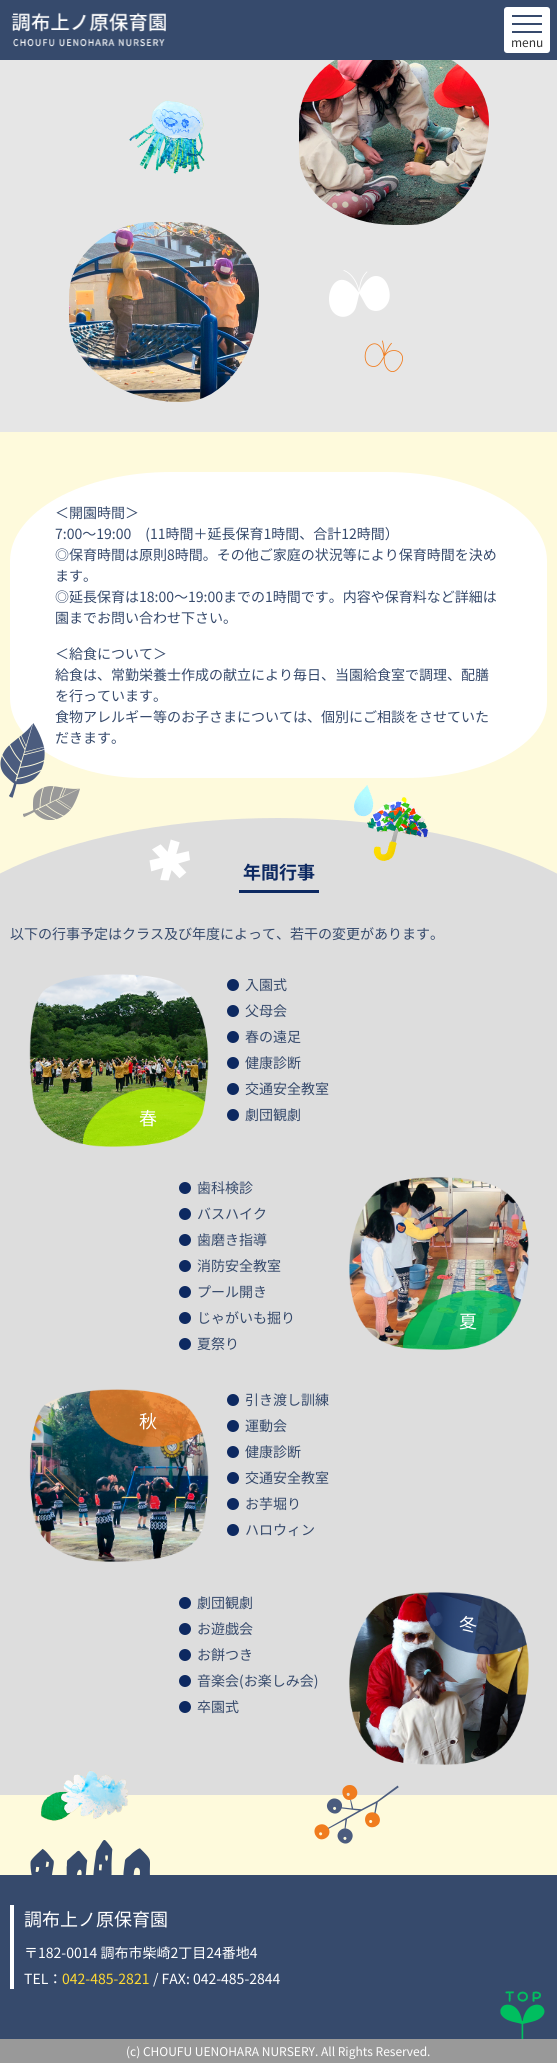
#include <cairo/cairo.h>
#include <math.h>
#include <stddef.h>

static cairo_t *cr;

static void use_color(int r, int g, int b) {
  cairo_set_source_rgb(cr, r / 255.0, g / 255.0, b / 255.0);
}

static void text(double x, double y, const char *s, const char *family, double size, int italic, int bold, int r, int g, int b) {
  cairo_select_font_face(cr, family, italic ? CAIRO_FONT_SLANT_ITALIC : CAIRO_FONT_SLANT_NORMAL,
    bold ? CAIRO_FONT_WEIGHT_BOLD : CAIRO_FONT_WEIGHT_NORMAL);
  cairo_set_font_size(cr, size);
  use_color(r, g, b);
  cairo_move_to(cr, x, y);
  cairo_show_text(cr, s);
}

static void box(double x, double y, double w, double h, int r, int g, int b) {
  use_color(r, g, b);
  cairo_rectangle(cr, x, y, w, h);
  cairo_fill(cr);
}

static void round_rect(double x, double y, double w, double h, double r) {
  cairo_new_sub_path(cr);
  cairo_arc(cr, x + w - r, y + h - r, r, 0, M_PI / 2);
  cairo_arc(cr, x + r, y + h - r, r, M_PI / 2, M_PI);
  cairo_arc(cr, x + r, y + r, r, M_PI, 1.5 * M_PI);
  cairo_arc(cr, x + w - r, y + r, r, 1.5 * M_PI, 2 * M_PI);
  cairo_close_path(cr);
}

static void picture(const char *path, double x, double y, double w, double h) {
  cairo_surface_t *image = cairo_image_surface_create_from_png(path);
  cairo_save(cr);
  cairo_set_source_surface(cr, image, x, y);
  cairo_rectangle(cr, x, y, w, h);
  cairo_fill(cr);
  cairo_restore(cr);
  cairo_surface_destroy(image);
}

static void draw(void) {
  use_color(254, 250, 220);
  cairo_paint(cr);
  box(0, 0, 557, 60, 54, 74, 108);
  picture("img_01.png", 11, 12, 155, 35);
  use_color(255, 255, 255);
  round_rect(504, 7, 46, 46, 3);
  cairo_fill(cr);
  box(512, 23, 30, 2, 54, 74, 108);
  box(512, 15, 30, 2, 54, 74, 108);
  box(512, 31, 30, 2, 54, 74, 108);
  box(0, 60, 557, 372, 230, 230, 230);
  picture("img_02.png", 299, 60, 190, 165);
  picture("img_03.png", 69, 222, 190, 180);
  picture("img_04.png", 129, 100, 76, 74);
  picture("img_05.png", 329, 270, 61, 47);
  picture("img_06.png", 364, 340, 39, 32);
  use_color(255, 255, 255);
  cairo_new_path(cr);
  cairo_move_to(cr, 171, 472);
  cairo_line_to(cr, 386, 472);
  cairo_curve_to(cr, 475, 472, 547, 512, 547, 561);
  cairo_line_to(cr, 547, 702);
  cairo_curve_to(cr, 547, 744, 484, 778, 407, 778);
  cairo_line_to(cr, 144, 778);
  cairo_curve_to(cr, 70, 778, 10, 742, 10, 698);
  cairo_line_to(cr, 10, 561);
  cairo_curve_to(cr, 10, 512, 82, 472, 171, 472);
  cairo_close_path(cr);
  cairo_fill(cr);
  picture("img_07.png", 0, 723, 45, 75);
  use_color(221, 221, 221);
  cairo_new_path(cr);
  cairo_move_to(cr, 278, 818);
  cairo_curve_to(cr, 476, 818, 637, 885, 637, 968);
  cairo_line_to(cr, 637, 1795);
  cairo_line_to(cr, -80, 1795);
  cairo_line_to(cr, -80, 968);
  cairo_curve_to(cr, -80, 885, 81, 818, 278, 818);
  cairo_close_path(cr);
  cairo_fill(cr);
  picture("img_08.png", 23, 786, 57, 34);
  box(239, 890, 80, 3, 13, 41, 97);
  picture("img_09.png", 149, 839, 41, 42);
  picture("img_10.png", 354, 785, 75, 76);
  picture("img_11.png", 29, 974, 180, 173);
  cairo_arc(cr, 233, 985, 6, 0, 2 * M_PI);
  cairo_fill(cr);
  cairo_arc(cr, 233, 1011, 6, 0, 2 * M_PI);
  cairo_fill(cr);
  cairo_arc(cr, 233, 1037, 6, 0, 2 * M_PI);
  cairo_fill(cr);
  cairo_arc(cr, 233, 1063, 6, 0, 2 * M_PI);
  cairo_fill(cr);
  cairo_arc(cr, 233, 1089, 6, 0, 2 * M_PI);
  cairo_fill(cr);
  cairo_arc(cr, 233, 1115, 6, 0, 2 * M_PI);
  cairo_fill(cr);
  cairo_arc(cr, 185, 1188, 6, 0, 2 * M_PI);
  cairo_fill(cr);
  cairo_arc(cr, 185, 1214, 6, 0, 2 * M_PI);
  cairo_fill(cr);
  cairo_arc(cr, 185, 1240, 6, 0, 2 * M_PI);
  cairo_fill(cr);
  cairo_arc(cr, 185, 1266, 6, 0, 2 * M_PI);
  cairo_fill(cr);
  cairo_arc(cr, 185, 1292, 6, 0, 2 * M_PI);
  cairo_fill(cr);
  cairo_arc(cr, 185, 1318, 6, 0, 2 * M_PI);
  cairo_fill(cr);
  cairo_arc(cr, 185, 1344, 6, 0, 2 * M_PI);
  cairo_fill(cr);
  picture("img_12.png", 349, 1177, 180, 173);
  picture("img_13.png", 29, 1389, 180, 173);
  cairo_arc(cr, 233, 1400, 6, 0, 2 * M_PI);
  cairo_fill(cr);
  cairo_arc(cr, 233, 1426, 6, 0, 2 * M_PI);
  cairo_fill(cr);
  cairo_arc(cr, 233, 1452, 6, 0, 2 * M_PI);
  cairo_fill(cr);
  cairo_arc(cr, 233, 1478, 6, 0, 2 * M_PI);
  cairo_fill(cr);
  cairo_arc(cr, 233, 1504, 6, 0, 2 * M_PI);
  cairo_fill(cr);
  cairo_arc(cr, 233, 1530, 6, 0, 2 * M_PI);
  cairo_fill(cr);
  cairo_arc(cr, 185, 1603, 6, 0, 2 * M_PI);
  cairo_fill(cr);
  cairo_arc(cr, 185, 1629, 6, 0, 2 * M_PI);
  cairo_fill(cr);
  cairo_arc(cr, 185, 1655, 6, 0, 2 * M_PI);
  cairo_fill(cr);
  cairo_arc(cr, 185, 1681, 6, 0, 2 * M_PI);
  cairo_fill(cr);
  cairo_arc(cr, 185, 1707, 6, 0, 2 * M_PI);
  cairo_fill(cr);
  picture("img_14.png", 349, 1592, 180, 173);
  picture("img_15.png", 40, 1770, 89, 51);
  picture("img_16.png", 314, 1785, 85, 59);
  box(0, 1875, 557, 164, 54, 74, 108);
  picture("img_17.png", 30, 1840, 120, 35);
  box(10, 1905, 4, 84, 255, 255, 255);
  box(0, 2039, 557, 24, 153, 153, 153);
  picture("img_18.png", 500, 1991, 45, 48);
  text(511, 47, "menu", "Noto Sans JP", 12, 0, 0, 51, 51, 51);
  text(55, 518, "＜開園時間＞", "Noto Sans JP", 14, 0, 0, 54, 74, 108);
  text(55, 539, "7:00～19:00　(11時間＋延長保育1時間、合計12時間）", "Noto Sans JP", 14, 0, 0, 54, 74, 108);
  text(55, 560, "◎保育時間は原則8時間。その他ご家庭の状況等により保育時間を決め", "Noto Sans JP", 14, 0, 0, 54, 74, 108);
  text(55, 581, "ます。", "Noto Sans JP", 14, 0, 0, 54, 74, 108);
  text(55, 602, "◎延長保育は18:00～19:00までの1時間です。内容や保育料など詳細は", "Noto Sans JP", 14, 0, 0, 54, 74, 108);
  text(55, 623, "園までお問い合わせ下さい。", "Noto Sans JP", 14, 0, 0, 54, 74, 108);
  text(55, 659, "＜給食について＞", "Noto Sans JP", 14, 0, 0, 54, 74, 108);
  text(55, 680, "給食は、常勤栄養士作成の献立により毎日、当園給食室で調理、配膳", "Noto Sans JP", 14, 0, 0, 54, 74, 108);
  text(55, 701, "を行っています。", "Noto Sans JP", 14, 0, 0, 54, 74, 108);
  text(55, 722, "食物アレルギー等のお子さまについては、個別にご相談をさせていた", "Noto Sans JP", 14, 0, 0, 54, 74, 108);
  text(55, 743, "だきます。", "Noto Sans JP", 14, 0, 0, 54, 74, 108);
  text(243, 879, "年間行事", "Noto Sans JP", 18, 0, 1, 13, 41, 97);
  text(10, 939, "以下の行事予定はクラス及び年度によって、若干の変更があります。", "Noto Sans JP", 14, 0, 0, 54, 74, 108);
  text(139, 1125, "春", "Noto Sans JP", 18, 0, 0, 255, 255, 255);
  text(245, 990, "入園式", "Noto Sans JP", 14, 0, 0, 54, 74, 108);
  text(245, 1016, "父母会", "Noto Sans JP", 14, 0, 0, 54, 74, 108);
  text(245, 1042, "春の遠足", "Noto Sans JP", 14, 0, 0, 54, 74, 108);
  text(245, 1068, "健康診断", "Noto Sans JP", 14, 0, 0, 54, 74, 108);
  text(245, 1094, "交通安全教室", "Noto Sans JP", 14, 0, 0, 54, 74, 108);
  text(245, 1120, "劇団観劇", "Noto Sans JP", 14, 0, 0, 54, 74, 108);
  text(197, 1193, "歯科検診", "Noto Sans JP", 14, 0, 0, 54, 74, 108);
  text(197, 1219, "バスハイク", "Noto Sans JP", 14, 0, 0, 54, 74, 108);
  text(197, 1245, "歯磨き指導", "Noto Sans JP", 14, 0, 0, 54, 74, 108);
  text(197, 1271, "消防安全教室", "Noto Sans JP", 14, 0, 0, 54, 74, 108);
  text(197, 1297, "プール開き", "Noto Sans JP", 14, 0, 0, 54, 74, 108);
  text(197, 1323, "じゃがいも掘り", "Noto Sans JP", 14, 0, 0, 54, 74, 108);
  text(197, 1349, "夏祭り", "Noto Sans JP", 14, 0, 0, 54, 74, 108);
  text(459, 1328, "夏", "Noto Sans JP", 18, 0, 0, 255, 255, 255);
  text(139, 1428, "秋", "Noto Sans JP", 18, 0, 0, 255, 255, 255);
  text(245, 1405, "引き渡し訓練", "Noto Sans JP", 14, 0, 0, 54, 74, 108);
  text(245, 1431, "運動会", "Noto Sans JP", 14, 0, 0, 54, 74, 108);
  text(245, 1457, "健康診断", "Noto Sans JP", 14, 0, 0, 54, 74, 108);
  text(245, 1483, "交通安全教室", "Noto Sans JP", 14, 0, 0, 54, 74, 108);
  text(245, 1509, "お芋堀り", "Noto Sans JP", 14, 0, 0, 54, 74, 108);
  text(245, 1535, "ハロウィン", "Noto Sans JP", 14, 0, 0, 54, 74, 108);
  text(197, 1608, "劇団観劇", "Noto Sans JP", 14, 0, 0, 54, 74, 108);
  text(197, 1634, "お遊戯会", "Noto Sans JP", 14, 0, 0, 54, 74, 108);
  text(197, 1660, "お餅つき", "Noto Sans JP", 14, 0, 0, 54, 74, 108);
  text(197, 1686, "音楽会(お楽しみ会)", "Noto Sans JP", 14, 0, 0, 54, 74, 108);
  text(197, 1712, "卒園式", "Noto Sans JP", 14, 0, 0, 54, 74, 108);
  text(459, 1631, "冬", "Noto Sans JP", 18, 0, 0, 255, 255, 255);
  text(24, 1926, "調布上ノ原保育園", "Noto Sans JP", 18, 0, 0, 255, 255, 255);
  text(24, 1958, "〒182-0014 調布市柴崎2丁目24番地4", "Noto Sans JP", 14, 0, 0, 255, 255, 255);
  text(24, 1984, "TEL：", "Noto Sans JP", 14, 0, 0, 255, 255, 255);
  text(62, 1984, "042-485-2821", "Noto Sans JP", 14, 0, 0, 254, 217, 52);
  text(153, 1984, "/ FAX: 042-485-2844", "Noto Sans JP", 14, 0, 0, 255, 255, 255);
  text(126, 2056, "(c) CHOUFU UENOHARA NURSERY. All Rights Reserved.", "Noto Sans JP", 12, 0, 0, 255, 255, 255);
}

int main(void) {
  cairo_surface_t *surface = cairo_image_surface_create(CAIRO_FORMAT_RGB24, 557, 2063);
  cr = cairo_create(surface);
  cairo_font_options_t *options = cairo_font_options_create();
  cairo_font_options_set_hint_metrics(options, CAIRO_HINT_METRICS_OFF);
  cairo_font_options_set_hint_style(options, CAIRO_HINT_STYLE_NONE);
  cairo_set_font_options(cr, options);
  cairo_set_miter_limit(cr, 4);
  draw();
  cairo_surface_write_to_png(surface, "out.png");
  cairo_font_options_destroy(options);
  cairo_destroy(cr);
  cairo_surface_destroy(surface);
  return 0;
}
